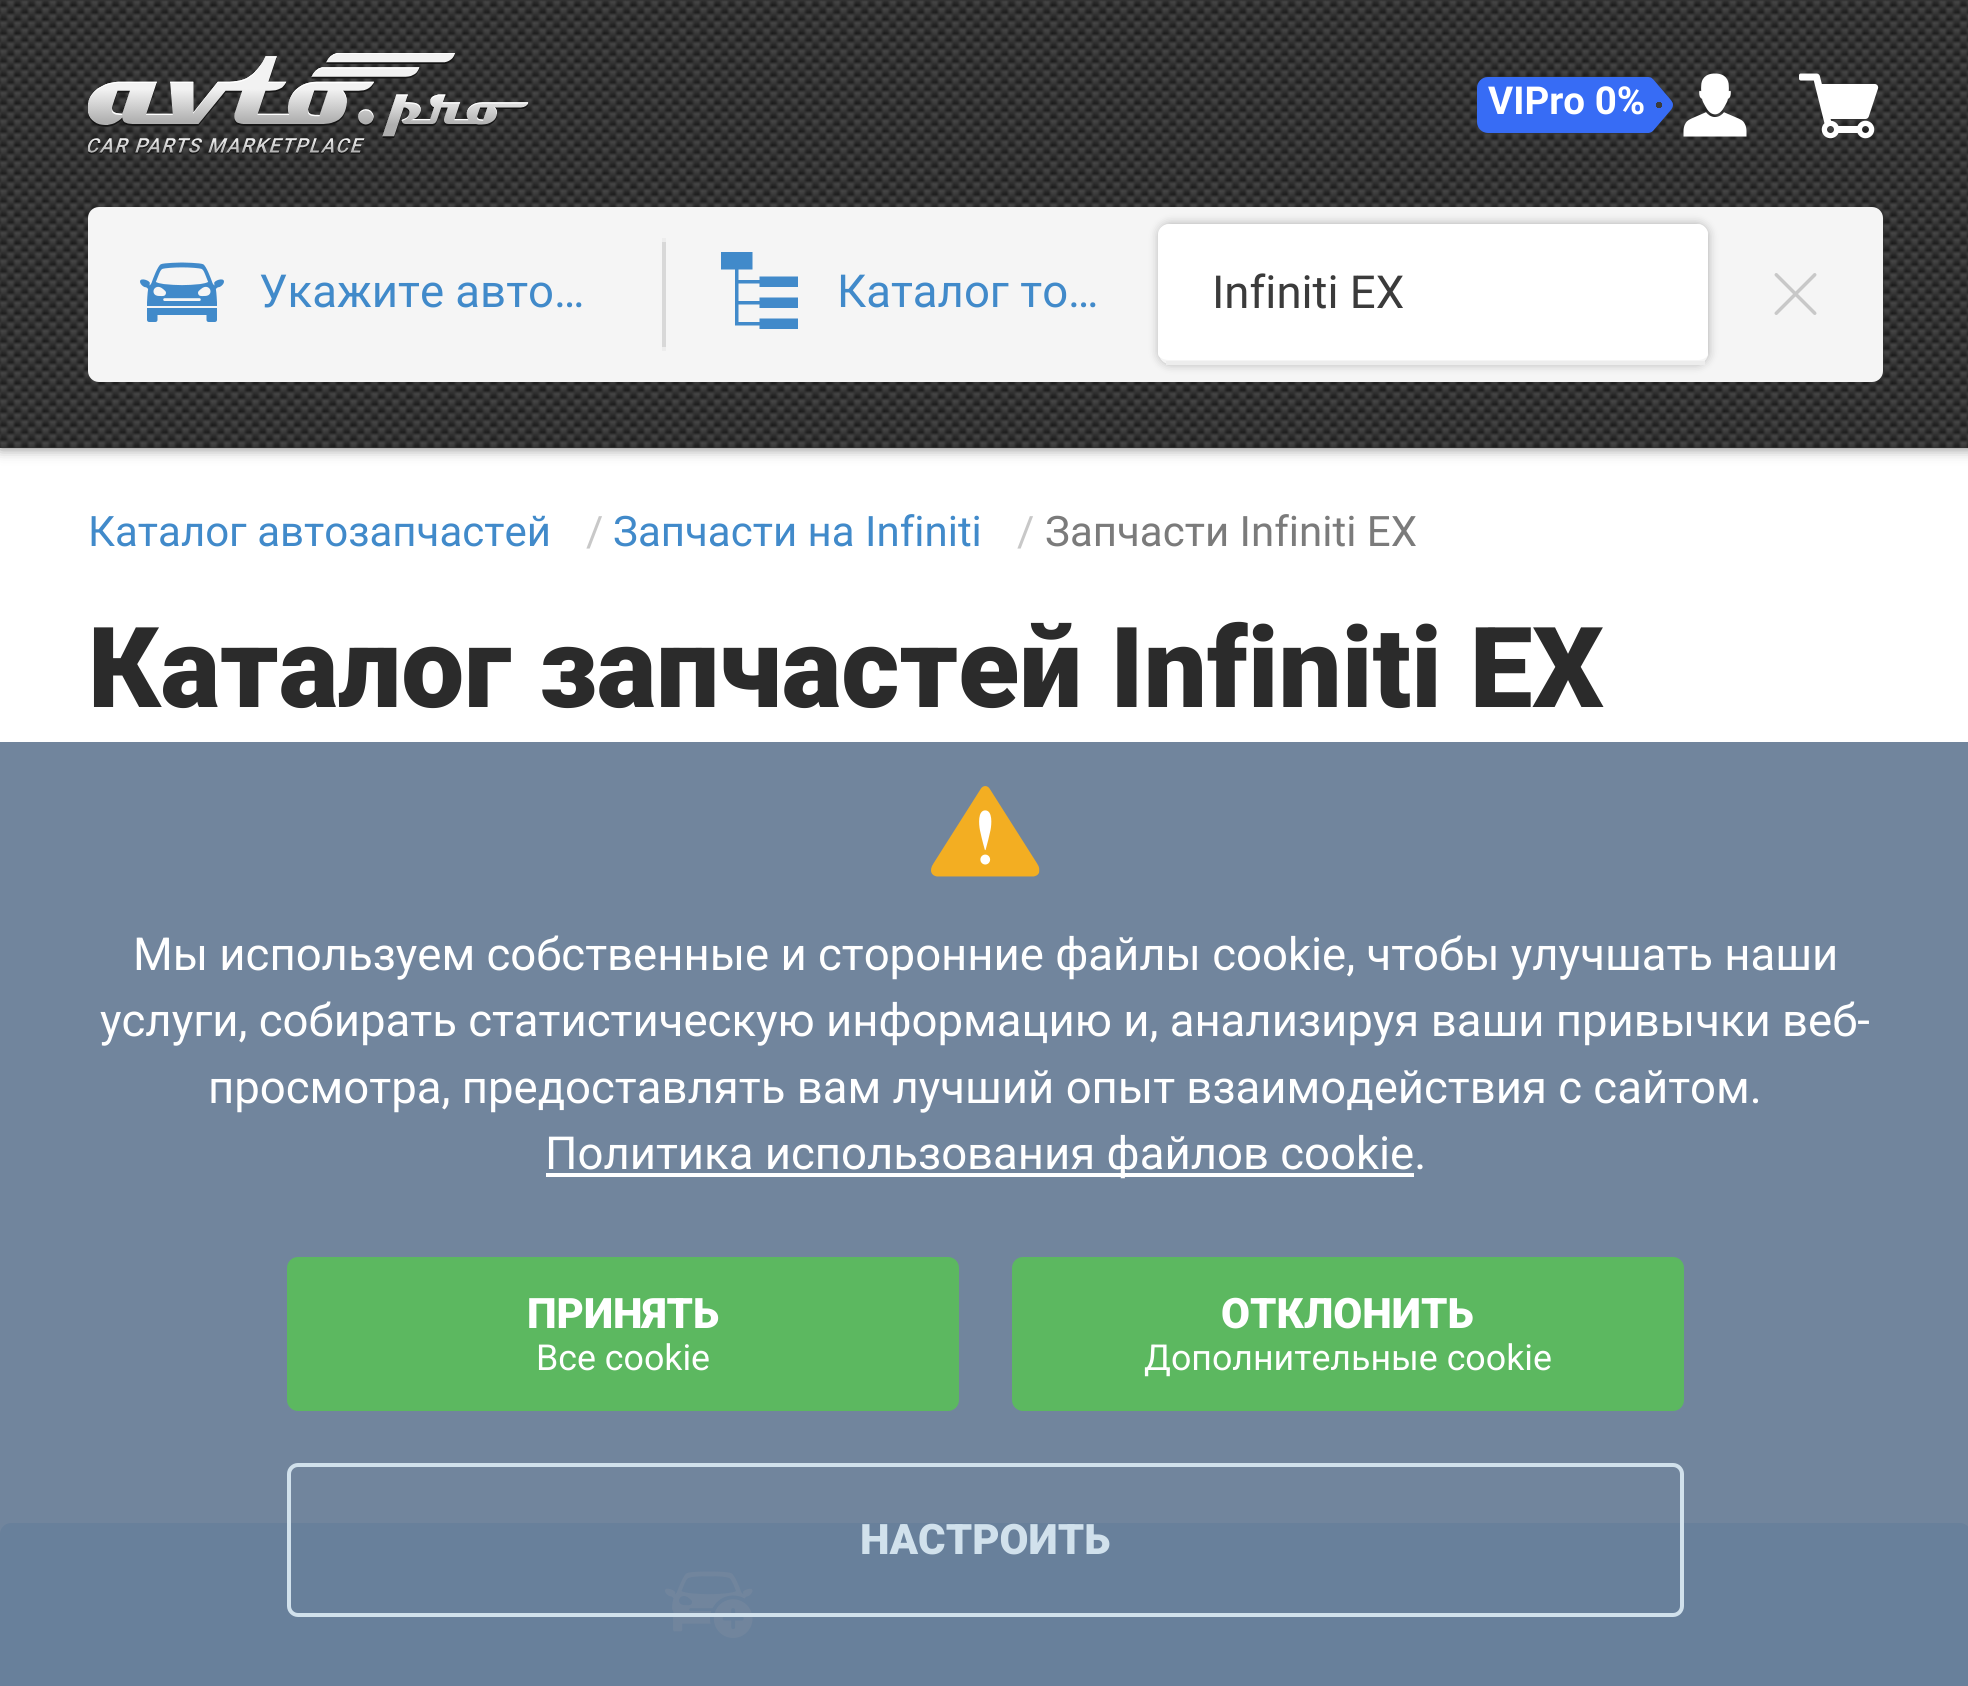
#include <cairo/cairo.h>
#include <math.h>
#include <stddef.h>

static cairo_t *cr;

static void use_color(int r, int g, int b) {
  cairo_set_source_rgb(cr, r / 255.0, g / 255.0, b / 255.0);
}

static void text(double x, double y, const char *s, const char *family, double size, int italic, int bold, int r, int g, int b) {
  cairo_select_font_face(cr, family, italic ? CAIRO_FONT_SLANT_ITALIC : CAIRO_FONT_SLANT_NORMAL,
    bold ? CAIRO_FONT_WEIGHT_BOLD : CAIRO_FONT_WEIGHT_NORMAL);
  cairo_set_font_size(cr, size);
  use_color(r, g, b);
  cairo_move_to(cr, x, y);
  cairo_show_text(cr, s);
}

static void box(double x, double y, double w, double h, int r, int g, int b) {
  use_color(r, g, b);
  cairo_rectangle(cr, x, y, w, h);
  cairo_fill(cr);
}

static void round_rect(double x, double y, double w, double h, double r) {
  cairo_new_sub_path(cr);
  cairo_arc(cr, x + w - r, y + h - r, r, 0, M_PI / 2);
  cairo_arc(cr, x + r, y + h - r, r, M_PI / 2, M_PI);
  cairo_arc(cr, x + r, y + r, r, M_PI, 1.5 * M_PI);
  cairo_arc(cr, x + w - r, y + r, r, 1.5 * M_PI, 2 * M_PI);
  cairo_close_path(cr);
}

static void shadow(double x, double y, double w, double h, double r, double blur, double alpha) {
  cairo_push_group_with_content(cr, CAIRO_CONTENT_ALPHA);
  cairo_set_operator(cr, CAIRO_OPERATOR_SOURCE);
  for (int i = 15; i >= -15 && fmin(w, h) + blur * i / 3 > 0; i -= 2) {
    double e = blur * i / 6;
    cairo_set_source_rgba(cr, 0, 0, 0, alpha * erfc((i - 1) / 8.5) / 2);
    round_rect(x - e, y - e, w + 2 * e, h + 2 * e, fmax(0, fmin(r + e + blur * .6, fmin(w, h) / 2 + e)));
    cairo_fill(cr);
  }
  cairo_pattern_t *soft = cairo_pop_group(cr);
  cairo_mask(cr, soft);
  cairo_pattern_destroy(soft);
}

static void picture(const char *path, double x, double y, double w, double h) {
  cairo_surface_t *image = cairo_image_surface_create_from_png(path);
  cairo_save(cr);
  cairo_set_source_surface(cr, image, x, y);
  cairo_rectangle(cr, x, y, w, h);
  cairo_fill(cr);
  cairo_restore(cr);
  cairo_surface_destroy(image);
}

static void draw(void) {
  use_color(255, 255, 255);
  cairo_paint(cr);
  box(0, 742, 1968, 792, 113, 133, 157);
  use_color(123, 123, 123);
  shadow(0, 0, 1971, 448, 0, 7, 1);
  box(0, 0, 1968, 448, 43, 43, 43);
  picture("img_01.png", 0, 0, 1968, 448);
  picture("img_02.png", 88, 53, 441, 101);
  use_color(55, 108, 245);
  round_rect(1477, 77, 179, 56, 11);
  cairo_fill(cr);
  picture("img_03.png", 1645, 77, 28, 56);
  picture("img_04.png", 1683, 73, 64, 64);
  picture("img_05.png", 1799, 73, 80, 66);
  use_color(245, 245, 245);
  round_rect(88, 207, 1795, 175, 11);
  cairo_fill(cr);
  picture("img_06.png", 140, 262, 84, 60);
  box(662, 238, 4, 112, 216, 216, 216);
  box(662, 238, 4, 4, 237, 237, 237);
  box(662, 347, 4, 4, 237, 237, 237);
  picture("img_07.png", 721, 252, 77, 77);
  cairo_save(cr);
  cairo_set_fill_rule(cr, CAIRO_FILL_RULE_EVEN_ODD);
  cairo_new_path(cr);
  cairo_move_to(cr, 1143, 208);
  cairo_line_to(cr, 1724, 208);
  cairo_line_to(cr, 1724, 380);
  cairo_line_to(cr, 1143, 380);
  cairo_close_path(cr);
  cairo_move_to(cr, 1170, 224);
  cairo_line_to(cr, 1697, 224);
  cairo_curve_to(cr, 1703, 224, 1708, 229, 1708, 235);
  cairo_line_to(cr, 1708, 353);
  cairo_curve_to(cr, 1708, 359, 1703, 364, 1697, 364);
  cairo_line_to(cr, 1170, 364);
  cairo_curve_to(cr, 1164, 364, 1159, 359, 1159, 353);
  cairo_line_to(cr, 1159, 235);
  cairo_curve_to(cr, 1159, 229, 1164, 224, 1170, 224);
  cairo_close_path(cr);
  cairo_clip(cr);
  use_color(0, 0, 0);
  shadow(1159, 224, 549, 140, 11, 5, 0.3);
  cairo_restore(cr);
  use_color(255, 255, 255);
  cairo_new_path(cr);
  cairo_move_to(cr, 1169, 224);
  cairo_line_to(cr, 1698, 224);
  cairo_curve_to(cr, 1703, 224, 1708, 229, 1708, 234);
  cairo_line_to(cr, 1708, 354);
  cairo_curve_to(cr, 1708, 357, 1703, 360, 1698, 360);
  cairo_line_to(cr, 1169, 360);
  cairo_curve_to(cr, 1163, 360, 1158, 357, 1158, 354);
  cairo_line_to(cr, 1158, 234);
  cairo_curve_to(cr, 1158, 229, 1163, 224, 1169, 224);
  cairo_close_path(cr);
  cairo_fill(cr);
  box(1166, 361, 539, 4, 237, 237, 237);
  picture("img_08.png", 1774, 273, 43, 42);
  use_color(104, 128, 155);
  cairo_new_path(cr);
  cairo_move_to(cr, 11, 1523);
  cairo_line_to(cr, 1960, 1523);
  cairo_curve_to(cr, 1966, 1523, 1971, 1528, 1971, 1534);
  cairo_line_to(cr, 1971, 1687);
  cairo_line_to(cr, 0, 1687);
  cairo_line_to(cr, 0, 1534);
  cairo_curve_to(cr, 0, 1528, 5, 1523, 11, 1523);
  cairo_close_path(cr);
  cairo_fill(cr);
  picture("img_09.png", 665, 1571, 88, 67);
  picture("img_10.png", 931, 786, 109, 91);
  box(546, 1173, 868, 4, 255, 255, 255);
  use_color(92, 184, 96);
  round_rect(287, 1257, 672, 154, 11);
  cairo_fill(cr);
  round_rect(1012, 1257, 672, 154, 11);
  cairo_fill(cr);
  round_rect(289, 1465, 1393, 150, 9);
  use_color(209, 225, 236);
  cairo_set_line_width(cr, 4);
  cairo_stroke(cr);
  text(1488, 114, "VIPro 0%", "Roboto", 38.5, 0, 1, 255, 255, 255);
  text(259, 307, "Укажите авто…", "Roboto", 45.5, 0, 0, 65, 138, 202);
  text(837, 307, "Каталог то…", "Roboto", 45.5, 0, 0, 65, 138, 202);
  text(1212, 308, "Infiniti EX", "Roboto", 45.5, 0, 0, 59, 59, 59);
  text(88, 546, "Каталог автозапчастей", "Roboto", 42, 0, 0, 65, 138, 202);
  text(586, 546, "/", "Roboto", 42, 0, 0, 200, 200, 200);
  text(613, 546, "Запчасти на Infiniti", "Roboto", 42, 0, 0, 65, 138, 202);
  text(1017, 546, "/", "Roboto", 42, 0, 0, 200, 200, 200);
  text(1045, 546, "Запчасти Infiniti EX", "Roboto", 42, 0, 0, 123, 123, 123);
  text(88, 707, "Каталог запчастей Infiniti EX", "Roboto Black", 112, 0, 0, 43, 43, 43);
  text(133, 970, "Мы используем собственные и сторонние файлы cookie, чтобы улучшать наши", "Roboto", 45.5, 0, 0, 255, 255, 255);
  text(100, 1036, "услуги, собирать статистическую информацию и, анализируя ваши привычки веб-", "Roboto", 45.5, 0, 0, 255, 255, 255);
  text(208, 1103, "просмотра, предоставлять вам лучший опыт взаимодействия с сайтом.", "Roboto", 45.5, 0, 0, 255, 255, 255);
  text(545, 1169, "Политика использования файлов cookie.", "Roboto", 45.5, 0, 0, 255, 255, 255);
  text(527, 1328, "ПРИНЯТЬ", "Roboto Black", 42, 0, 0, 255, 255, 255);
  text(536, 1370, "Все cookie", "Roboto", 35.75, 0, 0, 255, 255, 255);
  text(1221, 1328, "ОТКЛОНИТЬ", "Roboto Black", 42, 0, 0, 255, 255, 255);
  text(1144, 1370, "Дополнительные cookie", "Roboto", 35.75, 0, 0, 255, 255, 255);
  text(860, 1554, "НАСТРОИТЬ", "Roboto Black", 42, 0, 0, 209, 225, 236);
}

int main(void) {
  cairo_surface_t *surface = cairo_image_surface_create(CAIRO_FORMAT_RGB24, 1968, 1686);
  cr = cairo_create(surface);
  cairo_font_options_t *options = cairo_font_options_create();
  cairo_font_options_set_hint_metrics(options, CAIRO_HINT_METRICS_OFF);
  cairo_font_options_set_hint_style(options, CAIRO_HINT_STYLE_NONE);
  cairo_set_font_options(cr, options);
  cairo_set_miter_limit(cr, 4);
  draw();
  cairo_surface_write_to_png(surface, "out.png");
  cairo_font_options_destroy(options);
  cairo_destroy(cr);
  cairo_surface_destroy(surface);
  return 0;
}
